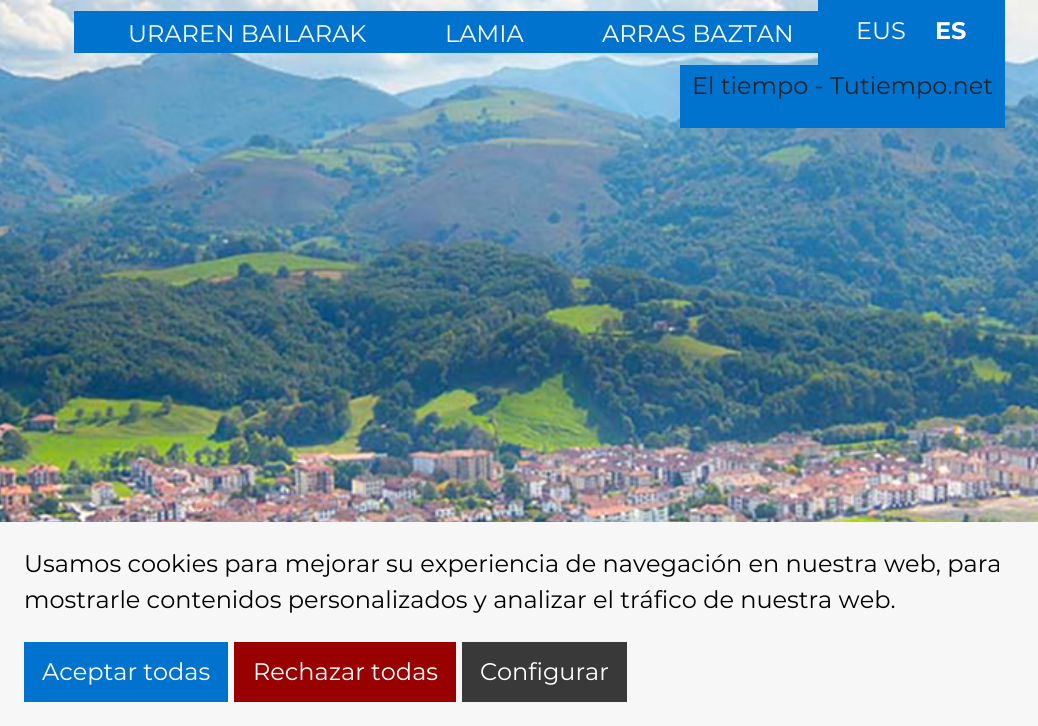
#include <cairo/cairo.h>
#include <math.h>
#include <stddef.h>

static cairo_t *cr;

static void use_color(int r, int g, int b) {
  cairo_set_source_rgb(cr, r / 255.0, g / 255.0, b / 255.0);
}

static void text(double x, double y, const char *s, const char *family, double size, int italic, int bold, int r, int g, int b) {
  cairo_select_font_face(cr, family, italic ? CAIRO_FONT_SLANT_ITALIC : CAIRO_FONT_SLANT_NORMAL,
    bold ? CAIRO_FONT_WEIGHT_BOLD : CAIRO_FONT_WEIGHT_NORMAL);
  cairo_set_font_size(cr, size);
  use_color(r, g, b);
  cairo_move_to(cr, x, y);
  cairo_show_text(cr, s);
}

static void box(double x, double y, double w, double h, int r, int g, int b) {
  use_color(r, g, b);
  cairo_rectangle(cr, x, y, w, h);
  cairo_fill(cr);
}

static void picture(const char *path, double x, double y, double w, double h) {
  cairo_surface_t *image = cairo_image_surface_create_from_png(path);
  cairo_save(cr);
  cairo_set_source_surface(cr, image, x, y);
  cairo_rectangle(cr, x, y, w, h);
  cairo_fill(cr);
  cairo_restore(cr);
  cairo_surface_destroy(image);
}

static void draw(void) {
  use_color(255, 255, 255);
  cairo_paint(cr);
  picture("img_01.png", 0, 0, 1038, 522);
  box(74, 11, 744, 42, 0, 115, 207);
  box(818, 0, 187, 65, 0, 115, 207);
  box(680, 65, 325, 63, 0, 115, 207);
  box(0, 522, 1038, 204, 247, 247, 247);
  box(24, 642, 204, 60, 0, 115, 207);
  box(234, 642, 222, 60, 153, 0, 0);
  box(462, 642, 165, 60, 57, 57, 57);
  text(128, 42, "URAREN BAILARAK", "Montserrat", 24, 0, 0, 255, 255, 255);
  text(445, 42, "LAMIA", "Montserrat", 24, 0, 0, 255, 255, 255);
  text(602, 42, "ARRAS BAZTAN", "Montserrat", 24, 0, 0, 255, 255, 255);
  text(856, 39, "EUS", "Montserrat", 24, 0, 0, 255, 255, 255);
  text(935, 39, "ES", "Montserrat", 24, 0, 1, 255, 255, 255);
  text(692, 94, "El tiempo - Tutiempo.net", "Montserrat", 24, 0, 0, 33, 37, 41);
  text(24, 572, "Usamos cookies para mejorar su experiencia de navegación en nuestra web, para", "Montserrat", 24, 0, 0, 0, 0, 0);
  text(24, 608, "mostrarle contenidos personalizados y analizar el tráfico de nuestra web.", "Montserrat", 24, 0, 0, 0, 0, 0);
  text(42, 680, "Aceptar todas", "Montserrat", 24, 0, 0, 255, 255, 255);
  text(253, 680, "Rechazar todas", "Montserrat", 24, 0, 0, 255, 255, 255);
  text(480, 680, "Configurar", "Montserrat", 24, 0, 0, 255, 255, 255);
}

int main(void) {
  cairo_surface_t *surface = cairo_image_surface_create(CAIRO_FORMAT_RGB24, 1038, 726);
  cr = cairo_create(surface);
  cairo_font_options_t *options = cairo_font_options_create();
  cairo_font_options_set_hint_metrics(options, CAIRO_HINT_METRICS_OFF);
  cairo_font_options_set_hint_style(options, CAIRO_HINT_STYLE_NONE);
  cairo_set_font_options(cr, options);
  cairo_set_miter_limit(cr, 4);
  draw();
  cairo_surface_write_to_png(surface, "out.png");
  cairo_font_options_destroy(options);
  cairo_destroy(cr);
  cairo_surface_destroy(surface);
  return 0;
}
